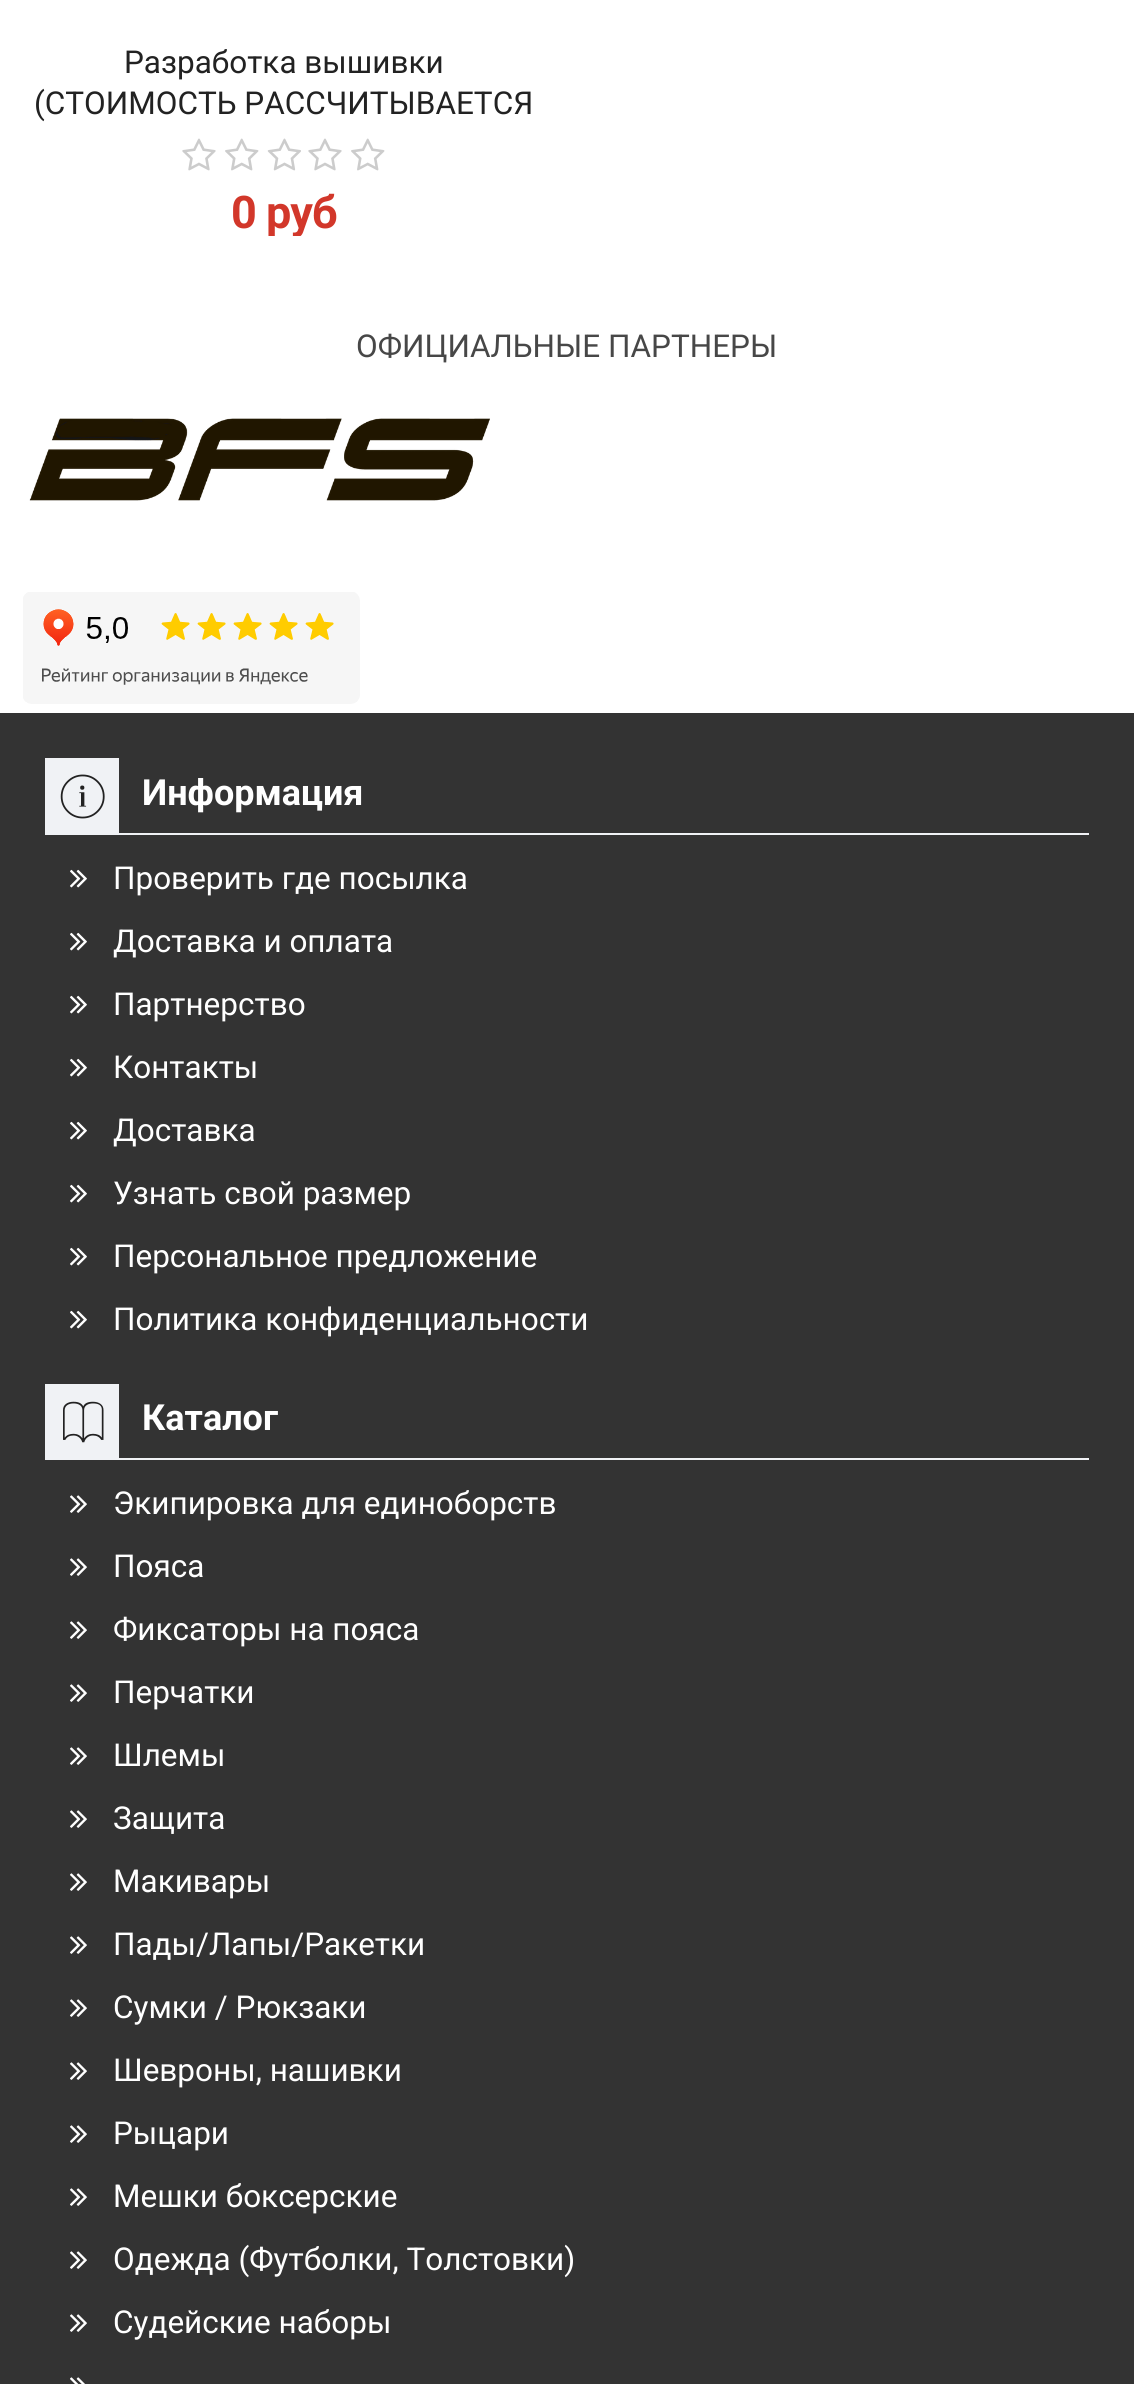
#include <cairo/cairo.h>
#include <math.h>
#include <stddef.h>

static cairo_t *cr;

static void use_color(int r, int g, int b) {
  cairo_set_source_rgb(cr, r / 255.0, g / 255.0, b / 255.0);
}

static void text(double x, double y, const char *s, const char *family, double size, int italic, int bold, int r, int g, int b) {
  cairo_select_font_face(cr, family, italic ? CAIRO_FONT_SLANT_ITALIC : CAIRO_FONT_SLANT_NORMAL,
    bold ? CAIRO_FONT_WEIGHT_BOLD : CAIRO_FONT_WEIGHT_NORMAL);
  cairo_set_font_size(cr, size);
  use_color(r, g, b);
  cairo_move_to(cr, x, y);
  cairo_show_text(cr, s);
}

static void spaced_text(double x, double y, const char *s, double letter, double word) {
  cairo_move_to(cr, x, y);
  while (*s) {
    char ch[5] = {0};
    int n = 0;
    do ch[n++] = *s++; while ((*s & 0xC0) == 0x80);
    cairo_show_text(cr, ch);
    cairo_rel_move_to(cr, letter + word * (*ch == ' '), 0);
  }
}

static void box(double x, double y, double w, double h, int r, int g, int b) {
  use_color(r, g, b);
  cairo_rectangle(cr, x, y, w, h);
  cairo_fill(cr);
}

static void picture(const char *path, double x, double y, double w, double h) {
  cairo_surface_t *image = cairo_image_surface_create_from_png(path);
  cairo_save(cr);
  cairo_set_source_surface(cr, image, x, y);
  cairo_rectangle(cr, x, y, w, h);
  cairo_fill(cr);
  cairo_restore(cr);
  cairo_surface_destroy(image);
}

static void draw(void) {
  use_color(255, 255, 255);
  cairo_paint(cr);
  picture("img_01.png", 182, 138, 34, 33);
  picture("img_02.png", 225, 138, 34, 33);
  picture("img_03.png", 267, 138, 34, 33);
  picture("img_01.png", 308, 138, 34, 33);
  picture("img_02.png", 351, 138, 34, 33);
  picture("img_04.png", 29, 418, 461, 83);
  picture("img_05.png", 23, 592, 337, 112);
  box(0, 713, 1134, 1671, 51, 51, 51);
  box(45, 833, 1044, 2, 240, 242, 245);
  box(45, 758, 74, 75, 240, 242, 245);
  picture("img_06.png", 60, 774, 45, 45);
  picture("img_07.png", 70, 869, 17, 19);
  picture("img_07.png", 70, 932, 17, 19);
  picture("img_07.png", 70, 995, 17, 19);
  picture("img_07.png", 70, 1058, 17, 19);
  picture("img_07.png", 70, 1121, 17, 19);
  picture("img_07.png", 70, 1184, 17, 19);
  picture("img_07.png", 70, 1247, 17, 19);
  picture("img_07.png", 70, 1310, 17, 19);
  box(45, 1458, 1044, 2, 240, 242, 245);
  box(45, 1384, 74, 74, 240, 242, 245);
  picture("img_08.png", 63, 1401, 41, 42);
  picture("img_09.png", 70, 1495, 17, 18);
  picture("img_09.png", 70, 1558, 17, 18);
  picture("img_09.png", 70, 1621, 17, 18);
  picture("img_09.png", 70, 1684, 17, 18);
  picture("img_09.png", 70, 1747, 17, 18);
  picture("img_09.png", 70, 1810, 17, 18);
  picture("img_09.png", 70, 1873, 17, 18);
  picture("img_09.png", 70, 1936, 17, 18);
  picture("img_09.png", 70, 1999, 17, 18);
  picture("img_09.png", 70, 2062, 17, 18);
  picture("img_09.png", 70, 2125, 17, 18);
  picture("img_09.png", 70, 2188, 17, 18);
  picture("img_09.png", 70, 2251, 17, 18);
  picture("img_09.png", 70, 2314, 17, 18);
  picture("img_10.png", 70, 2377, 15, 7);
  text(124, 73, "Разработка вышивки", "Roboto", 31.5, 0, 0, 34, 34, 34);
  text(34, 114, "(СТОИМОСТЬ РАССЧИТЫВАЕТСЯ", "Roboto", 31.5, 0, 0, 34, 34, 34);
  cairo_save(cr);
  cairo_rectangle(cr, 23, 191, 522, 45);
  cairo_clip(cr);
  cairo_select_font_face(cr, "Roboto", CAIRO_FONT_SLANT_NORMAL, CAIRO_FONT_WEIGHT_BOLD);
  cairo_set_font_size(cr, 45);
  use_color(210, 55, 42);
  spaced_text(231, 228, "0 руб", -1, 0);
  cairo_restore(cr);
  text(356, 357, "ОФИЦИАЛЬНЫЕ ПАРТНЕРЫ", "Roboto", 31.5, 0, 0, 71, 71, 71);
  text(142, 805, "Информация", "Roboto", 36, 0, 1, 255, 255, 255);
  text(113, 889, "Проверить где посылка", "Roboto", 31.5, 0, 0, 255, 255, 255);
  text(113, 952, "Доставка и оплата", "Roboto", 31.5, 0, 0, 255, 255, 255);
  text(113, 1015, "Партнерство", "Roboto", 31.5, 0, 0, 255, 255, 255);
  text(113, 1078, "Контакты", "Roboto", 31.5, 0, 0, 255, 255, 255);
  text(113, 1141, "Доставка", "Roboto", 31.5, 0, 0, 255, 255, 255);
  text(113, 1204, "Узнать свой размер", "Roboto", 31.5, 0, 0, 255, 255, 255);
  text(113, 1267, "Персональное предложение", "Roboto", 31.5, 0, 0, 255, 255, 255);
  text(113, 1330, "Политика конфиденциальности", "Roboto", 31.5, 0, 0, 255, 255, 255);
  text(142, 1430, "Каталог", "Roboto", 36, 0, 1, 255, 255, 255);
  text(113, 1514, "Экипировка для единоборств", "Roboto", 31.5, 0, 0, 255, 255, 255);
  text(113, 1577, "Пояса", "Roboto", 31.5, 0, 0, 255, 255, 255);
  text(113, 1640, "Фиксаторы на пояса", "Roboto", 31.5, 0, 0, 255, 255, 255);
  text(113, 1703, "Перчатки", "Roboto", 31.5, 0, 0, 255, 255, 255);
  text(113, 1766, "Шлемы", "Roboto", 31.5, 0, 0, 255, 255, 255);
  text(113, 1829, "Защита", "Roboto", 31.5, 0, 0, 255, 255, 255);
  text(113, 1892, "Макивары", "Roboto", 31.5, 0, 0, 255, 255, 255);
  text(113, 1955, "Пады/Лапы/Ракетки", "Roboto", 31.5, 0, 0, 255, 255, 255);
  text(113, 2018, "Сумки / Рюкзаки", "Roboto", 31.5, 0, 0, 255, 255, 255);
  text(113, 2081, "Шевроны, нашивки", "Roboto", 31.5, 0, 0, 255, 255, 255);
  text(113, 2144, "Рыцари", "Roboto", 31.5, 0, 0, 255, 255, 255);
  text(113, 2207, "Мешки боксерские", "Roboto", 31.5, 0, 0, 255, 255, 255);
  text(113, 2270, "Одежда (Футболки, Толстовки)", "Roboto", 31.5, 0, 0, 255, 255, 255);
  text(113, 2333, "Судейские наборы", "Roboto", 31.5, 0, 0, 255, 255, 255);
}

int main(void) {
  cairo_surface_t *surface = cairo_image_surface_create(CAIRO_FORMAT_RGB24, 1134, 2384);
  cr = cairo_create(surface);
  cairo_font_options_t *options = cairo_font_options_create();
  cairo_font_options_set_hint_metrics(options, CAIRO_HINT_METRICS_OFF);
  cairo_font_options_set_hint_style(options, CAIRO_HINT_STYLE_NONE);
  cairo_set_font_options(cr, options);
  cairo_set_miter_limit(cr, 4);
  draw();
  cairo_surface_write_to_png(surface, "out.png");
  cairo_font_options_destroy(options);
  cairo_destroy(cr);
  cairo_surface_destroy(surface);
  return 0;
}
